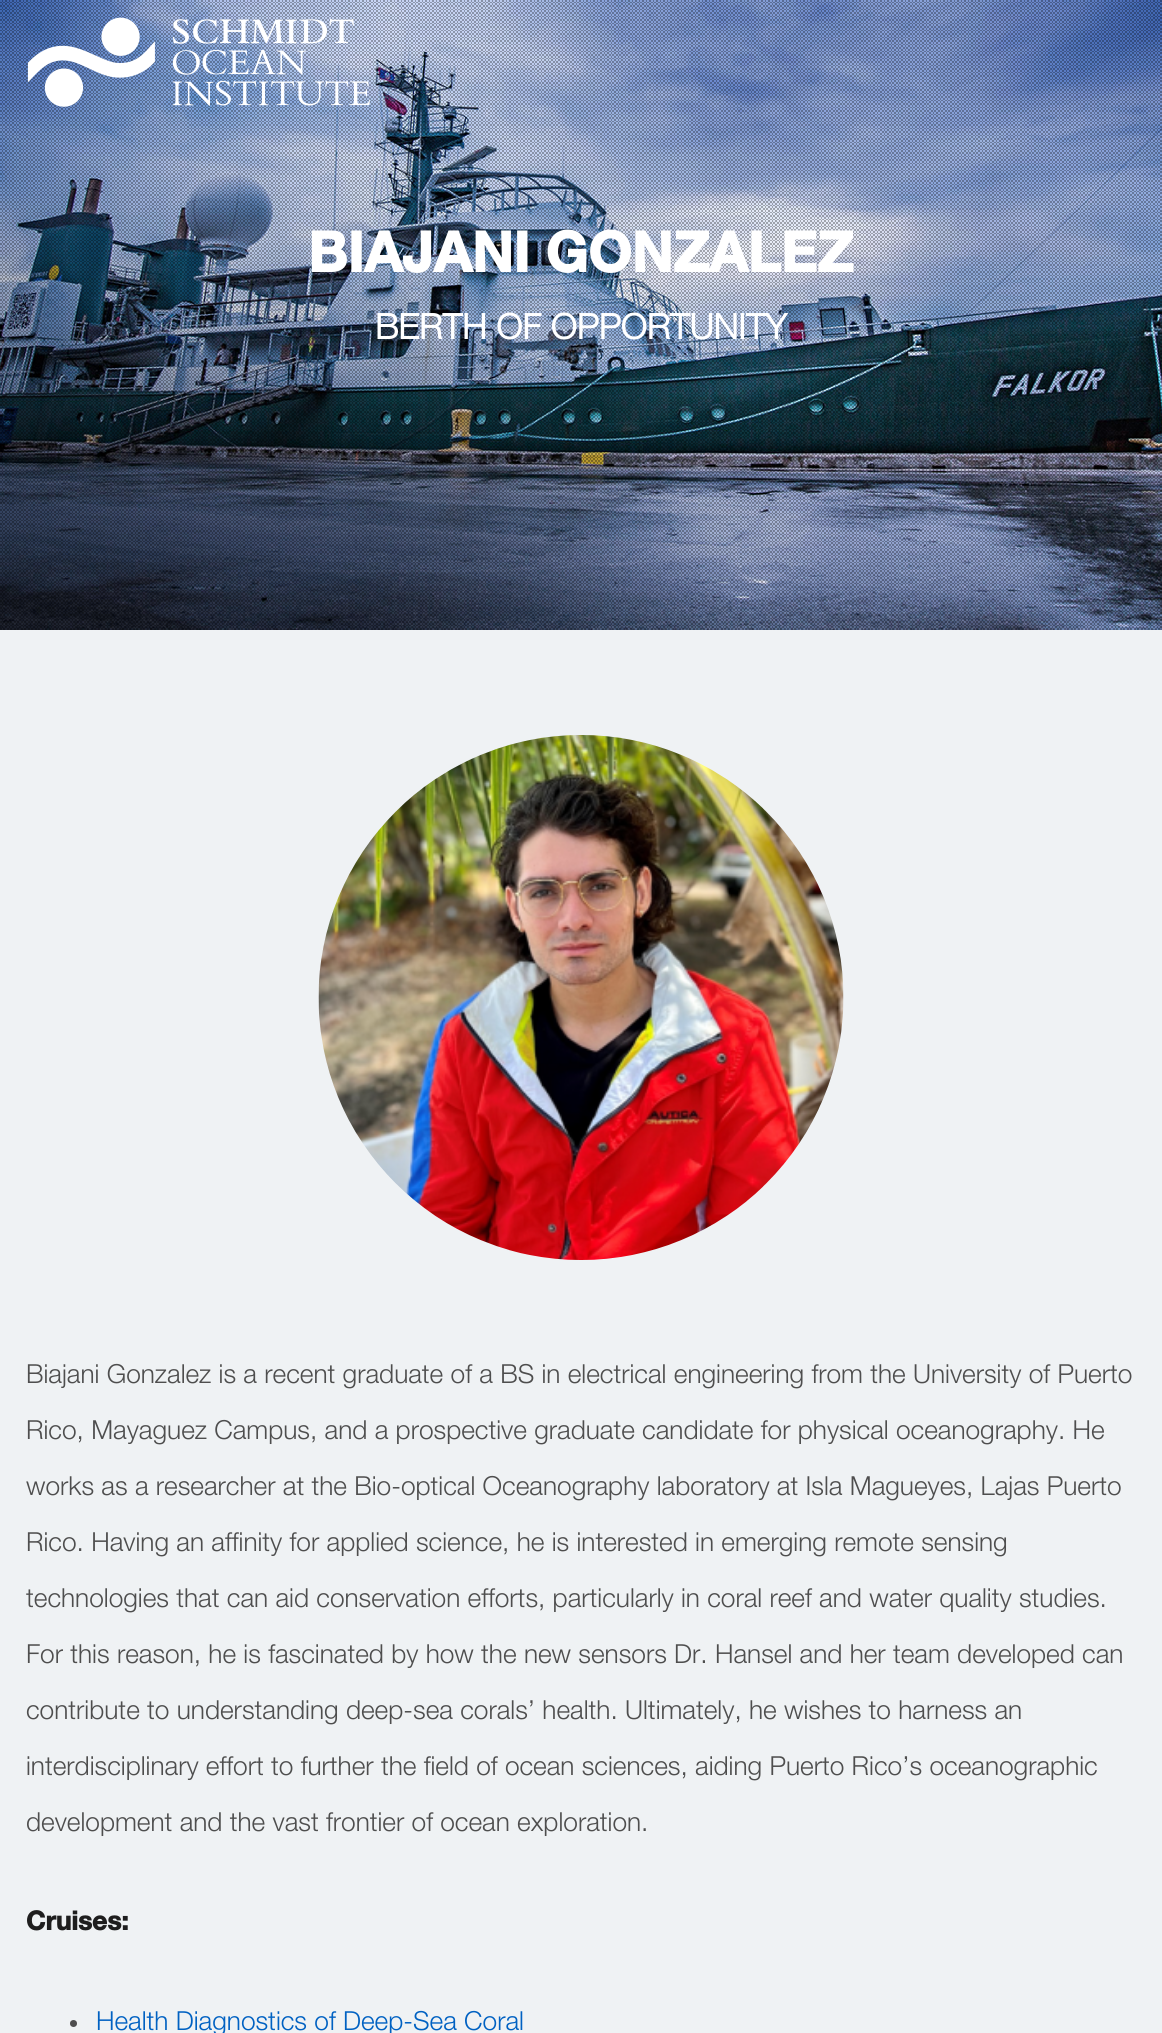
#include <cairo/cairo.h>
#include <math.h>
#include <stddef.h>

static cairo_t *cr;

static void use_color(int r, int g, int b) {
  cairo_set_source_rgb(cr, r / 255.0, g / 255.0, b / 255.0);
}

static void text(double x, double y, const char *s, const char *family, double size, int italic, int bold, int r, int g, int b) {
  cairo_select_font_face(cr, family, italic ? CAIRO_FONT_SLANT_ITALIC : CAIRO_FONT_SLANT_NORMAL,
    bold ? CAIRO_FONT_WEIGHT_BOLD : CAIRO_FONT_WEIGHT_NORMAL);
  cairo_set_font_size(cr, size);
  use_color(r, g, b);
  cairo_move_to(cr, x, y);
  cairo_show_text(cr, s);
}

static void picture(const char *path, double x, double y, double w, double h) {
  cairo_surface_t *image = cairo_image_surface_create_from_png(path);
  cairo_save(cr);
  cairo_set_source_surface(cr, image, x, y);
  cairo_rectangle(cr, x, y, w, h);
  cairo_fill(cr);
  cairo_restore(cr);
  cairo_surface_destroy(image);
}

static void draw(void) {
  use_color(239, 242, 244);
  cairo_paint(cr);
  picture("img_02.png", 0, 0, 1162, 630);
  picture("img_03.png", 0, 0, 1162, 630);
  picture("img_01.png", 27, 17, 343, 90);
  picture("img_04.png", 318, 735, 526, 525);
  use_color(78, 78, 78);
  cairo_arc(cr, 73.5, 2023.5, 3.5, 0, 2 * M_PI);
  cairo_fill(cr);
  text(308, 272, "BIAJANI GONZALEZ", "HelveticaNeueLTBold", 56, 0, 1, 255, 255, 255);
  text(375, 339, "BERTH OF OPPORTUNITY", "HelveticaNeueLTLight", 35, 0, 1, 255, 255, 255);
  text(26, 1383, "Biajani Gonzalez is a recent graduate of a BS in electrical engineering from the University of Puerto", "HelveticaNeueLTLight", 26.25, 0, 0, 78, 78, 78);
  text(26, 1439, "Rico, Mayaguez Campus, and a prospective graduate candidate for physical oceanography. He", "HelveticaNeueLTLight", 26.25, 0, 0, 78, 78, 78);
  text(26, 1495, "works as a researcher at the Bio-optical Oceanography laboratory at Isla Magueyes, Lajas Puerto", "HelveticaNeueLTLight", 26.25, 0, 0, 78, 78, 78);
  text(26, 1551, "Rico. Having an affinity for applied science, he is interested in emerging remote sensing", "HelveticaNeueLTLight", 26.25, 0, 0, 78, 78, 78);
  text(26, 1607, "technologies that can aid conservation efforts, particularly in coral reef and water quality studies.", "HelveticaNeueLTLight", 26.25, 0, 0, 78, 78, 78);
  text(26, 1663, "For this reason, he is fascinated by how the new sensors Dr. Hansel and her team developed can", "HelveticaNeueLTLight", 26.25, 0, 0, 78, 78, 78);
  text(26, 1719, "contribute to understanding deep-sea corals’ health. Ultimately, he wishes to harness an", "HelveticaNeueLTLight", 26.25, 0, 0, 78, 78, 78);
  text(26, 1775, "interdisciplinary effort to further the field of ocean sciences, aiding Puerto Rico’s oceanographic", "HelveticaNeueLTLight", 26.25, 0, 0, 78, 78, 78);
  text(26, 1831, "development and the vast frontier of ocean exploration.", "HelveticaNeueLTLight", 26.25, 0, 0, 78, 78, 78);
  text(26, 1930, "Cruises:", "HelveticaNeueLTBold", 26.25, 0, 1, 30, 30, 30);
  text(96, 2030, "Health Diagnostics of Deep-Sea Coral", "HelveticaNeueLTLight", 26.25, 0, 0, 0, 97, 194);
}

int main(void) {
  cairo_surface_t *surface = cairo_image_surface_create(CAIRO_FORMAT_RGB24, 1162, 2033);
  cr = cairo_create(surface);
  cairo_font_options_t *options = cairo_font_options_create();
  cairo_font_options_set_hint_metrics(options, CAIRO_HINT_METRICS_OFF);
  cairo_font_options_set_hint_style(options, CAIRO_HINT_STYLE_NONE);
  cairo_set_font_options(cr, options);
  cairo_set_miter_limit(cr, 4);
  draw();
  cairo_surface_write_to_png(surface, "out.png");
  cairo_font_options_destroy(options);
  cairo_destroy(cr);
  cairo_surface_destroy(surface);
  return 0;
}
